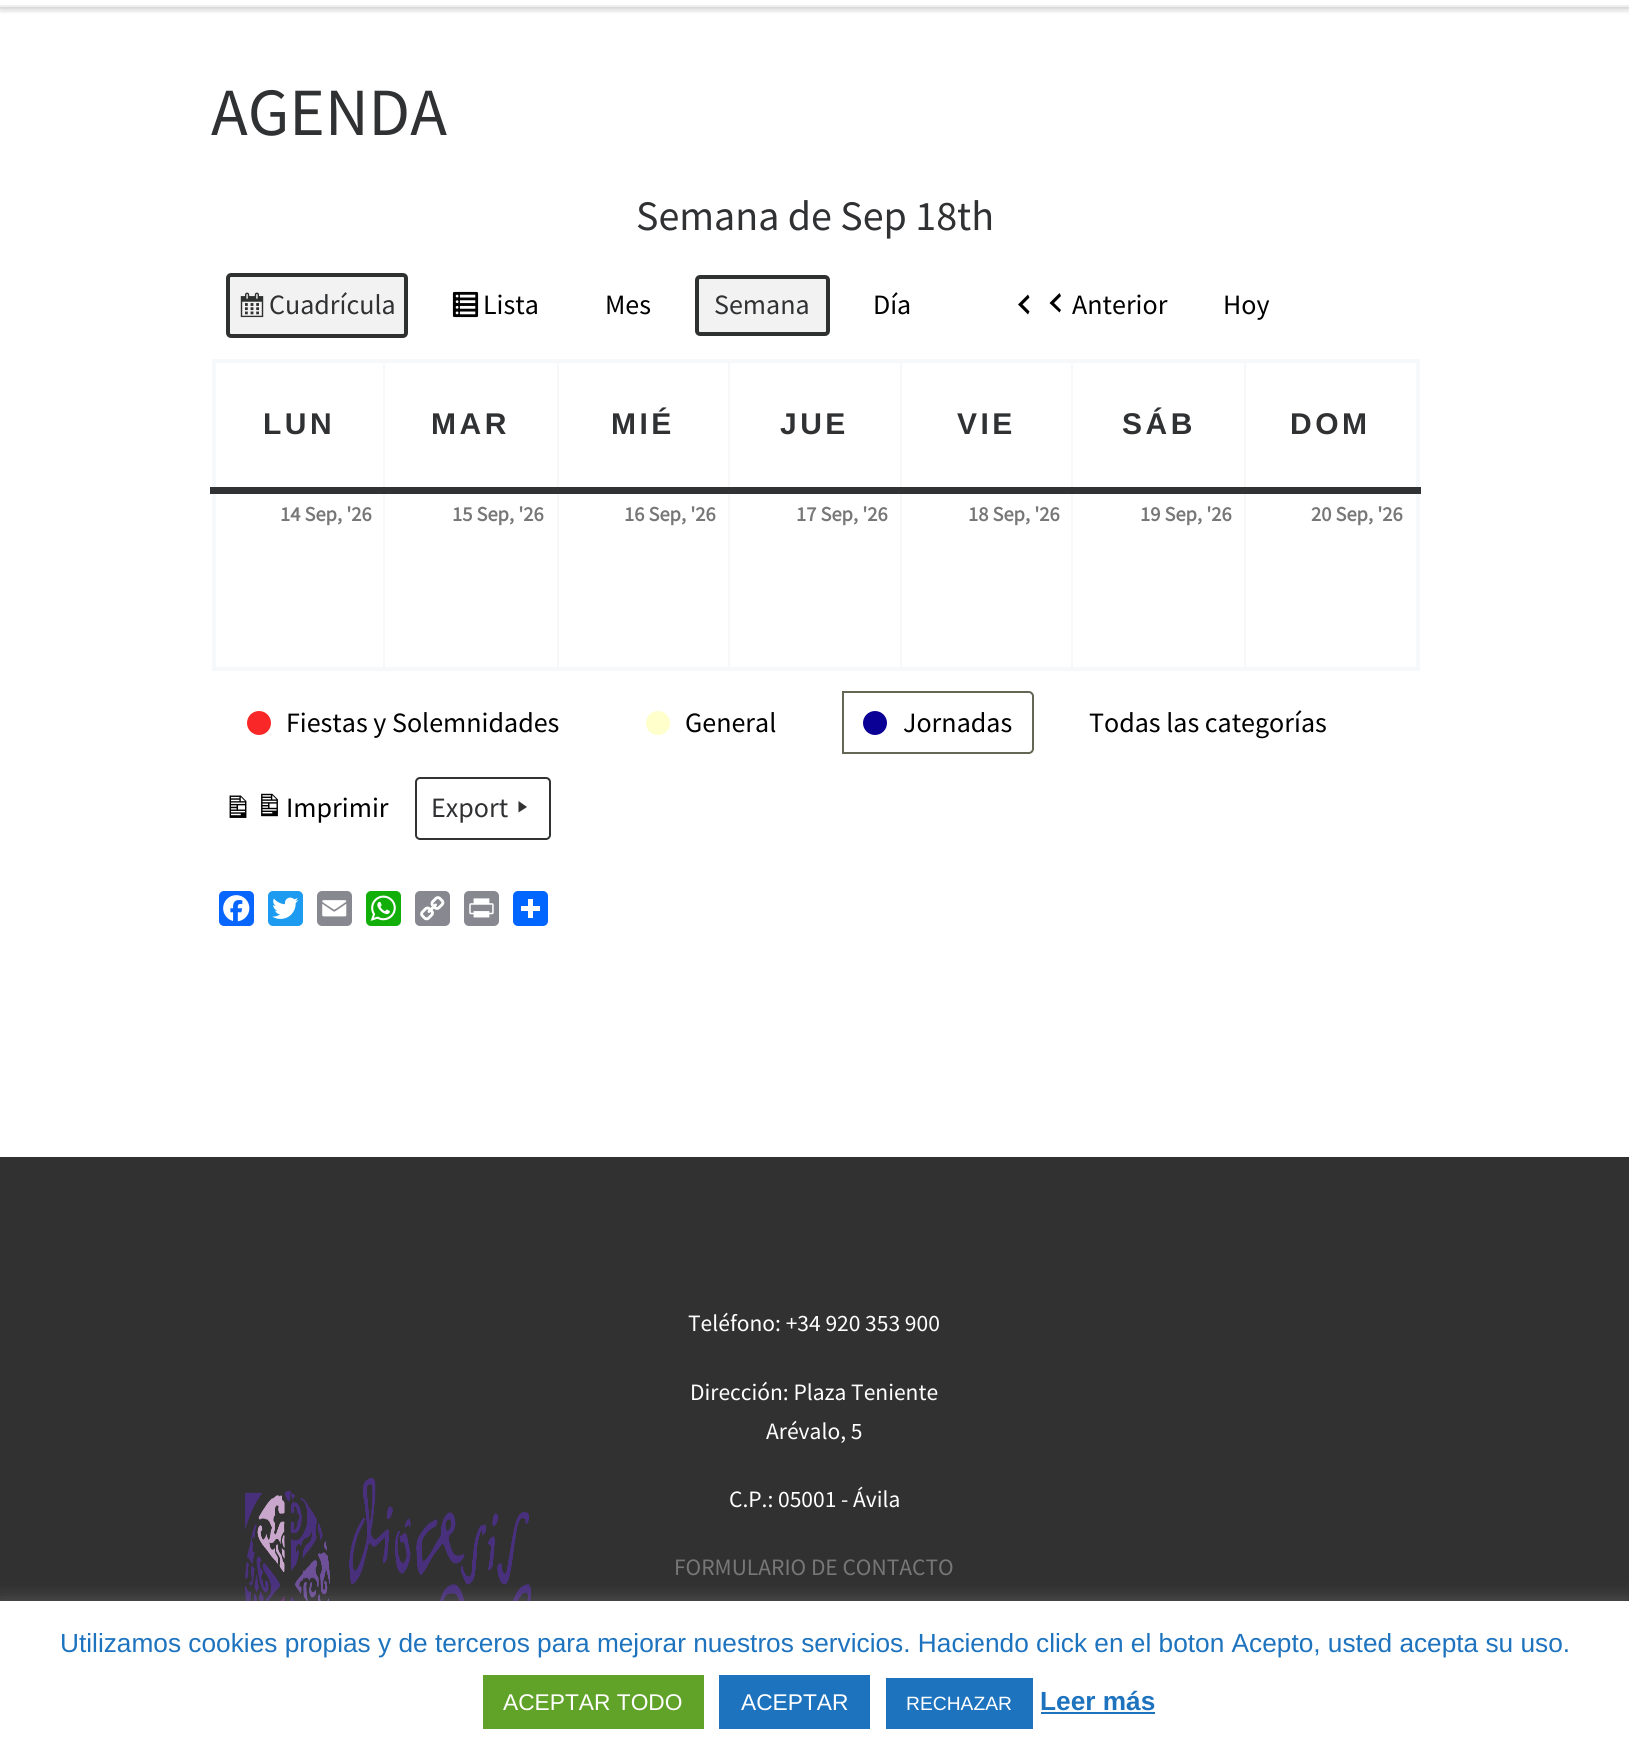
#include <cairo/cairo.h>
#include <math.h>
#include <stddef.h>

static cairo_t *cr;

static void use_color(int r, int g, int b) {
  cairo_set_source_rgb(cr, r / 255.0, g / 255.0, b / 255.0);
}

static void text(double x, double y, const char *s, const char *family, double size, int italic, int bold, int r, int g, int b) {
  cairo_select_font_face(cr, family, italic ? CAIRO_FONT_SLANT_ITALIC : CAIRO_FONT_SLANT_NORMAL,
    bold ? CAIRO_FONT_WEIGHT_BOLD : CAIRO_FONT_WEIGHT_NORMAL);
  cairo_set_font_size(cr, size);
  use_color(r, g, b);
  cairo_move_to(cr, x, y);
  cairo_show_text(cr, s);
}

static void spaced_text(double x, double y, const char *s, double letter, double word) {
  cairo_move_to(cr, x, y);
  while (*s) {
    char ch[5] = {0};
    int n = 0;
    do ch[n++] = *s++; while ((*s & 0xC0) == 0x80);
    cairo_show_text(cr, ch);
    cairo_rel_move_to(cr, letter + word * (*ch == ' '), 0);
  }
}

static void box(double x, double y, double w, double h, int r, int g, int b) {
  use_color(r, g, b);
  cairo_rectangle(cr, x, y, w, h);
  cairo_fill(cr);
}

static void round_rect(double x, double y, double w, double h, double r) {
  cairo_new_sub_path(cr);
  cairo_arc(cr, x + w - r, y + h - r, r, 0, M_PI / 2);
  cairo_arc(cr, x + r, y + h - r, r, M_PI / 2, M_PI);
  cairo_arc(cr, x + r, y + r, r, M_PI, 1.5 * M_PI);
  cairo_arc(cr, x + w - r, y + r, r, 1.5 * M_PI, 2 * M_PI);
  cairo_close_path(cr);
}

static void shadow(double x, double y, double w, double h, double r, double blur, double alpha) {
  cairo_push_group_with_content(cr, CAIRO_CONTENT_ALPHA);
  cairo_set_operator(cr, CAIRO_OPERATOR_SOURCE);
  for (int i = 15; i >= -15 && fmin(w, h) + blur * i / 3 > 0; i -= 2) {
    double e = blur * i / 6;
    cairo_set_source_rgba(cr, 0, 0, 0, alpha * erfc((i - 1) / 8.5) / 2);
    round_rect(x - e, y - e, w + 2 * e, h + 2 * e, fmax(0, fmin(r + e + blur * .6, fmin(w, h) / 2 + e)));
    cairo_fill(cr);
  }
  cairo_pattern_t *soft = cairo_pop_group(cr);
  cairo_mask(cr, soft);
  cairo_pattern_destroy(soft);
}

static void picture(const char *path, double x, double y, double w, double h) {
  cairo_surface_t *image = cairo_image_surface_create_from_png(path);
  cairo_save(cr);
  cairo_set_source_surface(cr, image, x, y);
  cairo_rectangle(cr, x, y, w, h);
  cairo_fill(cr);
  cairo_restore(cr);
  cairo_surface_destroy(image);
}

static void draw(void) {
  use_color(255, 255, 255);
  cairo_paint(cr);
  use_color(102, 102, 102);
  shadow(0, -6, 1629, 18, 0, 2, 0.08);
  box(0, 0, 1629, 5, 255, 255, 255);
  box(0, 7, 1629, 2, 239, 239, 239);
  cairo_save(cr);
  cairo_rectangle(cr, 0, 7, 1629, 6);
  cairo_clip(cr);
  use_color(0, 0, 0);
  shadow(0, -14, 1629, 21, 0, 4.5, 0.2);
  cairo_restore(cr);
  box(0, 5, 1629, 2, 240, 240, 240);
  use_color(242, 242, 242);
  round_rect(226, 273, 182, 65, 5);
  cairo_fill(cr);
  round_rect(228, 275, 178, 61, 3);
  use_color(47, 48, 48);
  cairo_set_line_width(cr, 4);
  cairo_stroke(cr);
  picture("img_01.png", 240, 292, 24, 26);
  picture("img_02.png", 452, 291, 27, 27);
  use_color(242, 242, 242);
  round_rect(695, 275, 135, 61, 5);
  cairo_fill(cr);
  round_rect(697, 277, 131, 57, 3);
  use_color(47, 48, 48);
  cairo_stroke(cr);
  use_color(0, 0, 0);
  cairo_new_path(cr);
  cairo_move_to(cr, 1029.5, 297.5);
  cairo_line_to(cr, 1022.5, 304.5);
  cairo_line_to(cr, 1029.5, 311.5);
  cairo_line_to(cr, 1028, 314.5);
  cairo_line_to(cr, 1018, 304.5);
  cairo_line_to(cr, 1028, 294.5);
  cairo_close_path(cr);
  cairo_fill(cr);
  cairo_new_path(cr);
  cairo_move_to(cr, 1061, 296);
  cairo_line_to(cr, 1054, 303);
  cairo_line_to(cr, 1061, 310);
  cairo_line_to(cr, 1059.5, 312.5);
  cairo_line_to(cr, 1049.5, 303);
  cairo_line_to(cr, 1059.5, 293);
  cairo_close_path(cr);
  cairo_fill(cr);
  box(383, 361, 2, 309, 247, 248, 249);
  box(557, 361, 2, 309, 247, 248, 249);
  box(728, 361, 2, 309, 247, 248, 249);
  box(900, 361, 2, 309, 247, 248, 249);
  box(1071, 361, 2, 309, 247, 248, 249);
  box(1244, 361, 2, 309, 247, 248, 249);
  box(212, 359, 1207, 4, 247, 248, 249);
  box(1416, 359, 4, 311, 247, 248, 249);
  box(212, 667, 1207, 4, 247, 248, 249);
  box(212, 359, 4, 311, 247, 248, 249);
  box(210, 487, 1211, 7, 49, 50, 51);
  use_color(249, 39, 39);
  cairo_arc(cr, 259, 723, 13, 0, 2 * M_PI);
  cairo_fill_preserve(cr);
  use_color(255, 255, 255);
  cairo_set_line_width(cr, 2);
  cairo_stroke(cr);
  use_color(255, 255, 204);
  cairo_arc(cr, 658, 723, 13, 0, 2 * M_PI);
  cairo_fill_preserve(cr);
  use_color(255, 255, 255);
  cairo_stroke(cr);
  cairo_new_path(cr);
  cairo_move_to(cr, 843, 692);
  cairo_line_to(cr, 1029, 692);
  cairo_curve_to(cr, 1031, 692, 1033, 694, 1033, 696);
  cairo_line_to(cr, 1033, 749);
  cairo_curve_to(cr, 1033, 751, 1031, 753, 1029, 753);
  cairo_line_to(cr, 843, 753);
  cairo_close_path(cr);
  use_color(102, 102, 85);
  cairo_stroke(cr);
  use_color(10, 0, 150);
  cairo_arc(cr, 875, 723, 13, 0, 2 * M_PI);
  cairo_fill_preserve(cr);
  use_color(255, 255, 255);
  cairo_stroke(cr);
  picture("img_03.png", 229, 795, 18, 23);
  picture("img_04.png", 261, 793, 17, 24);
  round_rect(416, 778, 134, 61, 4);
  use_color(49, 50, 51);
  cairo_stroke(cr);
  cairo_new_path(cr);
  cairo_move_to(cr, 518.5, 801);
  cairo_line_to(cr, 527, 807);
  cairo_line_to(cr, 518.5, 812.5);
  cairo_close_path(cr);
  cairo_fill(cr);
  use_color(8, 102, 255);
  round_rect(219, 891, 35, 35, 5);
  cairo_fill(cr);
  picture("img_05.png", 223, 895, 27, 27);
  use_color(29, 155, 240);
  round_rect(268, 891, 35, 35, 5);
  cairo_fill(cr);
  picture("img_06.png", 272, 897, 27, 22);
  use_color(136, 137, 144);
  round_rect(317, 891, 35, 35, 5);
  cairo_fill(cr);
  picture("img_07.png", 322, 900, 25, 17);
  use_color(18, 175, 10);
  round_rect(366, 891, 35, 35, 5);
  cairo_fill(cr);
  picture("img_08.png", 370, 895, 26, 26);
  use_color(136, 137, 144);
  round_rect(415, 891, 35, 35, 5);
  cairo_fill(cr);
  picture("img_09.png", 420, 896, 25, 25);
  round_rect(464, 891, 35, 35, 5);
  cairo_fill(cr);
  picture("img_10.png", 469, 898, 25, 20);
  use_color(1, 102, 255);
  round_rect(513, 891, 35, 35, 5);
  cairo_fill(cr);
  box(528, 899, 5, 19, 255, 255, 255);
  box(521, 906, 19, 5, 255, 255, 255);
  box(0, 1157, 1629, 444, 49, 49, 49);
  picture("img_11.png", 245, 1477, 287, 124);
  use_color(172, 171, 171);
  shadow(0, 1600, 1629, 148, 0, 9, 0.3);
  box(0, 1601, 1629, 149, 255, 255, 255);
  box(483, 1675, 221, 54, 97, 162, 41);
  box(719, 1675, 151, 54, 30, 115, 190);
  box(886, 1678, 147, 51, 30, 115, 190);
  box(1041, 1712, 114, 2, 30, 115, 190);
  text(211, 135, "AGENDA", "Source Sans Pro", 67.5, 0, 0, 48, 49, 51);
  text(636, 230, "Semana de Sep 18th", "Source Sans Pro", 42, 0, 0, 48, 49, 51);
  text(269, 314, "Cuadrícula", "Source Sans Pro", 28, 0, 0, 48, 49, 51);
  text(483, 314, "Lista", "Source Sans Pro", 28, 0, 0, 0, 0, 0);
  text(605, 314, "Mes", "Source Sans Pro", 28, 0, 0, 0, 0, 0);
  text(714, 314, "Semana", "Source Sans Pro", 28, 0, 0, 48, 49, 51);
  text(873, 314, "Día", "Source Sans Pro", 28, 0, 0, 0, 0, 0);
  text(1072, 314, "Anterior", "Source Sans Pro", 28, 0, 0, 0, 0, 0);
  text(1223, 314, "Hoy", "Source Sans Pro", 28, 0, 0, 0, 0, 0);
  cairo_select_font_face(cr, "Liberation Sans", CAIRO_FONT_SLANT_NORMAL, CAIRO_FONT_WEIGHT_BOLD);
  cairo_set_font_size(cr, 30);
  use_color(48, 49, 51);
  spaced_text(263, 434, "LUN", 3.5, 0);
  spaced_text(431, 434, "MAR", 3.5, 0);
  spaced_text(611, 434, "MIÉ", 3.5, 0);
  spaced_text(780, 434, "JUE", 3.5, 0);
  spaced_text(957, 434, "VIE", 3.5, 0);
  spaced_text(1122, 434, "SÁB", 3.5, 0);
  spaced_text(1290, 434, "DOM", 3.5, 0);
  text(280, 521, "14 Sep, '26", "Source Sans Pro", 20.5, 0, 1, 119, 119, 119);
  text(452, 521, "15 Sep, '26", "Source Sans Pro", 20.5, 0, 1, 119, 119, 119);
  text(624, 521, "16 Sep, '26", "Source Sans Pro", 20.5, 0, 1, 119, 119, 119);
  text(796, 521, "17 Sep, '26", "Source Sans Pro", 20.5, 0, 1, 119, 119, 119);
  text(968, 521, "18 Sep, '26", "Source Sans Pro", 20.5, 0, 1, 119, 119, 119);
  text(1140, 521, "19 Sep, '26", "Source Sans Pro", 20.5, 0, 1, 119, 119, 119);
  text(1311, 521, "20 Sep, '26", "Source Sans Pro", 20.5, 0, 1, 119, 119, 119);
  text(286, 732, "Fiestas y Solemnidades", "Source Sans Pro", 28, 0, 0, 0, 0, 0);
  text(685, 732, "General", "Source Sans Pro", 28, 0, 0, 0, 0, 0);
  text(903, 732, "Jornadas", "Source Sans Pro", 28, 0, 0, 0, 0, 0);
  text(1089, 732, "Todas las categorías", "Source Sans Pro", 28, 0, 0, 0, 0, 0);
  text(286, 817, "Imprimir", "Source Sans Pro", 28, 0, 0, 0, 0, 0);
  text(431, 817, "Export", "Source Sans Pro", 28, 0, 0, 48, 49, 51);
  text(688, 1331, "Teléfono: +34 920 353 900", "Source Sans Pro", 23.5, 0, 0, 255, 255, 255);
  text(690, 1400, "Dirección: Plaza Teniente", "Source Sans Pro", 23.5, 0, 0, 255, 255, 255);
  text(766, 1439, "Arévalo, 5", "Source Sans Pro", 23.5, 0, 0, 255, 255, 255);
  text(729, 1507, "C.P.: 05001 - Ávila", "Source Sans Pro", 23.5, 0, 0, 255, 255, 255);
  text(674, 1575, "FORMULARIO DE CONTACTO", "Source Sans Pro", 23.5, 0, 0, 119, 119, 119);
  text(60, 1652, "Utilizamos cookies propias y de terceros para mejorar nuestros servicios. Haciendo click en el boton Acepto, usted acepta su uso.", "Liberation Sans", 26.25, 0, 0, 30, 115, 190);
  text(503, 1710, "ACEPTAR TODO", "Liberation Sans", 22.75, 0, 0, 255, 255, 255);
  text(741, 1710, "ACEPTAR", "Liberation Sans", 22.75, 0, 0, 255, 255, 255);
  text(906, 1710, "RECHAZAR", "Liberation Sans", 19.25, 0, 0, 255, 255, 255);
  text(1040, 1710, "Leer más", "Liberation Sans", 26.25, 0, 1, 30, 115, 190);
}

int main(void) {
  cairo_surface_t *surface = cairo_image_surface_create(CAIRO_FORMAT_RGB24, 1629, 1750);
  cr = cairo_create(surface);
  cairo_font_options_t *options = cairo_font_options_create();
  cairo_font_options_set_hint_metrics(options, CAIRO_HINT_METRICS_OFF);
  cairo_font_options_set_hint_style(options, CAIRO_HINT_STYLE_NONE);
  cairo_set_font_options(cr, options);
  cairo_set_miter_limit(cr, 4);
  draw();
  cairo_surface_write_to_png(surface, "out.png");
  cairo_font_options_destroy(options);
  cairo_destroy(cr);
  cairo_surface_destroy(surface);
  return 0;
}
